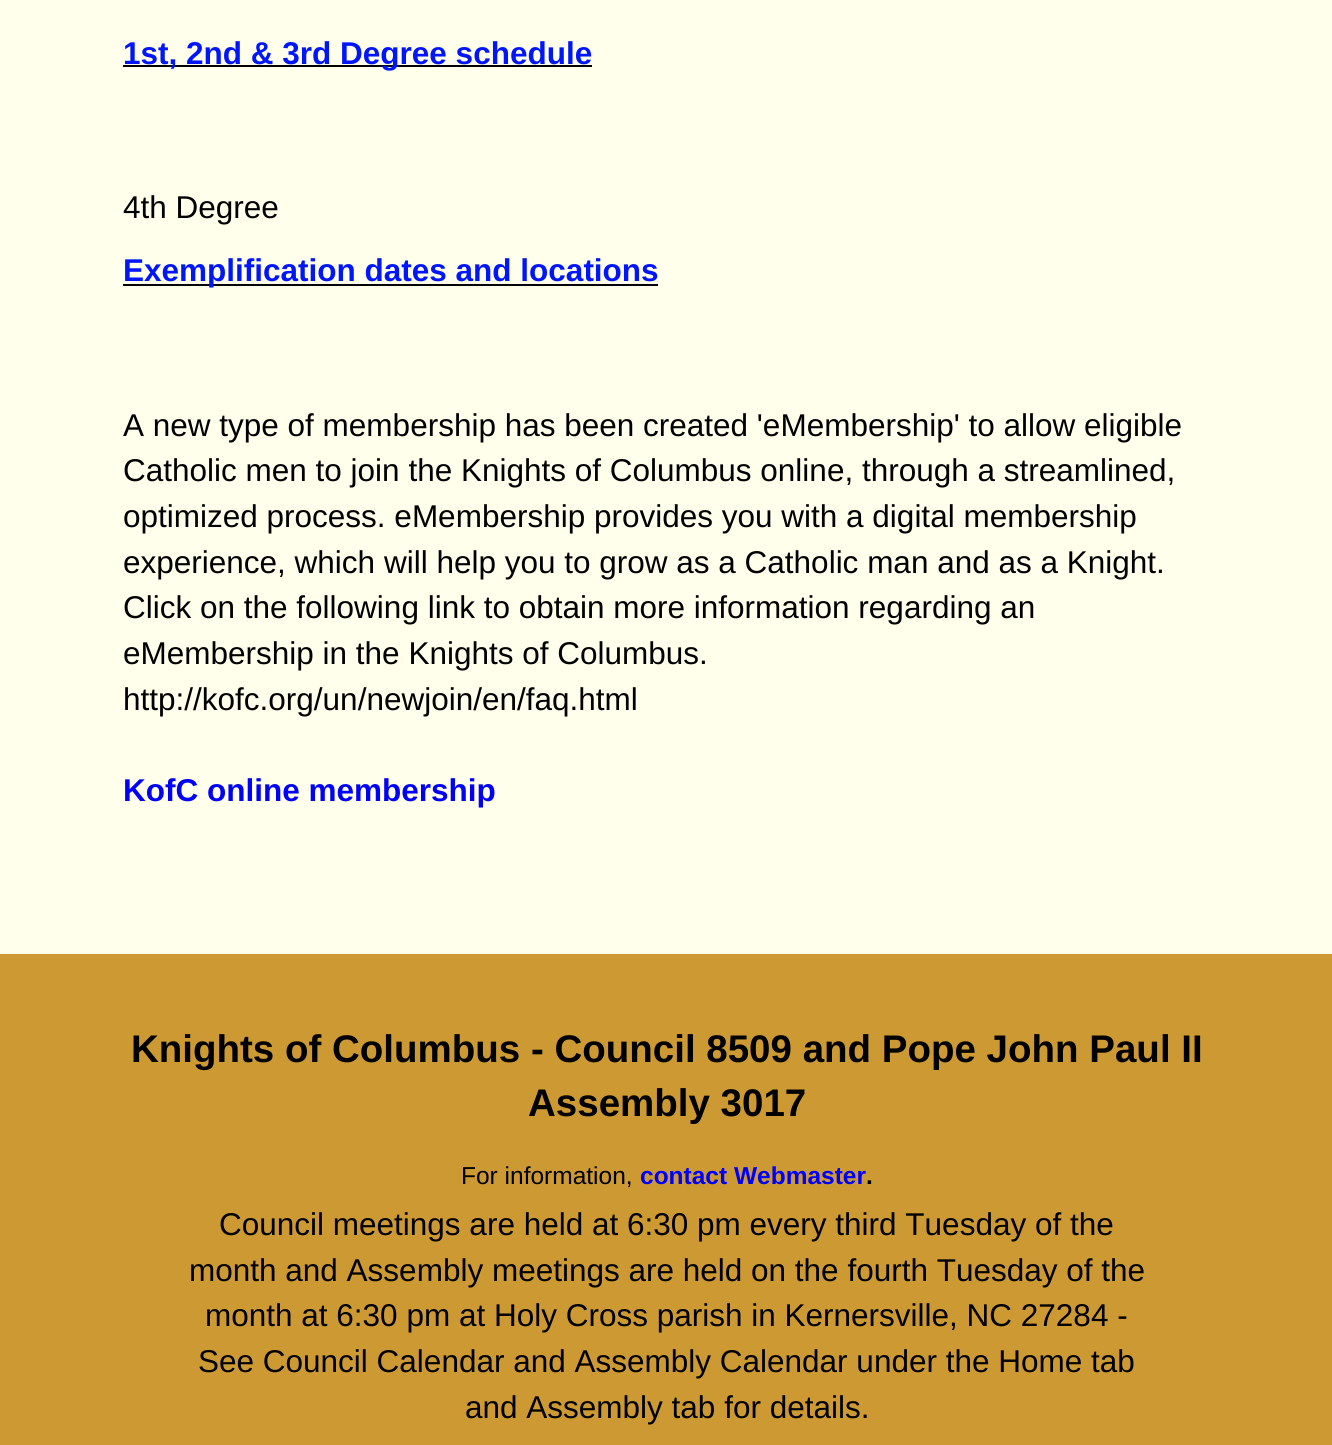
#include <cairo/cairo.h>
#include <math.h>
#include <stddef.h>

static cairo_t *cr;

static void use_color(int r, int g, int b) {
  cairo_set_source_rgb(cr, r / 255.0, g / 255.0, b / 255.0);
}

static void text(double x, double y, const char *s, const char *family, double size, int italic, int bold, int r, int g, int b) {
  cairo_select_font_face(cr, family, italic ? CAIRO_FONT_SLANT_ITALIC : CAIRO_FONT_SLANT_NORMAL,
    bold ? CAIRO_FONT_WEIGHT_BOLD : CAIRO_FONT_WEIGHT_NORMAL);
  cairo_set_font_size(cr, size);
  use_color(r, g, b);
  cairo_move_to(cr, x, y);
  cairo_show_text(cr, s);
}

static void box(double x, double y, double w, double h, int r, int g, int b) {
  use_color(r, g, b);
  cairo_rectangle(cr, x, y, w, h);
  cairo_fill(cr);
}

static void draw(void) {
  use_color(255, 255, 236);
  cairo_paint(cr);
  box(123, 65, 469, 2, 0, 0, 0);
  box(123, 284, 535, 2, 0, 0, 0);
  box(0, 954, 1332, 491, 204, 153, 51);
  text(123, 64, "1st, 2nd & 3rd Degree schedule", "Liberation Sans", 31.5, 0, 1, 0, 21, 255);
  text(123, 218, "4th Degree", "Liberation Sans", 31.5, 0, 0, 0, 0, 0);
  text(123, 281, "Exemplification dates and locations", "Liberation Sans", 31.5, 0, 1, 0, 21, 255);
  text(123, 436, "A new type of membership has been created 'eMembership' to allow eligible", "Liberation Sans", 31.5, 0, 0, 0, 0, 0);
  text(123, 481, "Catholic men to join the Knights of Columbus online, through a streamlined,", "Liberation Sans", 31.5, 0, 0, 0, 0, 0);
  text(123, 527, "optimized process. eMembership provides you with a digital membership", "Liberation Sans", 31.5, 0, 0, 0, 0, 0);
  text(123, 573, "experience, which will help you to grow as a Catholic man and as a Knight.", "Liberation Sans", 31.5, 0, 0, 0, 0, 0);
  text(123, 618, "Click on the following link to obtain more information regarding an", "Liberation Sans", 31.5, 0, 0, 0, 0, 0);
  text(123, 664, "eMembership in the Knights of Columbus.", "Liberation Sans", 31.5, 0, 0, 0, 0, 0);
  text(123, 710, "http://kofc.org/un/newjoin/en/faq.html", "Liberation Sans", 31.5, 0, 0, 0, 0, 0);
  text(123, 801, "KofC online membership", "Liberation Sans", 31.5, 0, 1, 0, 0, 255);
  text(131, 1062, "Knights of Columbus - Council 8509 and Pope John Paul II", "Liberation Sans", 38.5, 0, 1, 0, 0, 0);
  text(528, 1116, "Assembly 3017", "Liberation Sans", 38.5, 0, 1, 0, 0, 0);
  text(461, 1184, "For information,", "Liberation Sans", 24.5, 0, 0, 0, 0, 0);
  text(640, 1184, "contact Webmaster", "Liberation Sans", 24.5, 0, 1, 0, 0, 255);
  text(866, 1184, ".", "Liberation Sans", 24.5, 0, 1, 0, 0, 0);
  text(219, 1235, "Council meetings are held at 6:30 pm every third Tuesday of the", "Liberation Sans", 31.5, 0, 0, 0, 0, 0);
  text(189, 1281, "month and Assembly meetings are held on the fourth Tuesday of the", "Liberation Sans", 31.5, 0, 0, 0, 0, 0);
  text(205, 1326, "month at 6:30 pm at Holy Cross parish in Kernersville, NC 27284 -", "Liberation Sans", 31.5, 0, 0, 0, 0, 0);
  text(198, 1372, "See Council Calendar and Assembly Calendar under the Home tab", "Liberation Sans", 31.5, 0, 0, 0, 0, 0);
  text(465, 1418, "and Assembly tab for details.", "Liberation Sans", 31.5, 0, 0, 0, 0, 0);
}

int main(void) {
  cairo_surface_t *surface = cairo_image_surface_create(CAIRO_FORMAT_RGB24, 1332, 1445);
  cr = cairo_create(surface);
  cairo_font_options_t *options = cairo_font_options_create();
  cairo_font_options_set_hint_metrics(options, CAIRO_HINT_METRICS_OFF);
  cairo_font_options_set_hint_style(options, CAIRO_HINT_STYLE_NONE);
  cairo_set_font_options(cr, options);
  cairo_set_miter_limit(cr, 4);
  draw();
  cairo_surface_write_to_png(surface, "out.png");
  cairo_font_options_destroy(options);
  cairo_destroy(cr);
  cairo_surface_destroy(surface);
  return 0;
}
